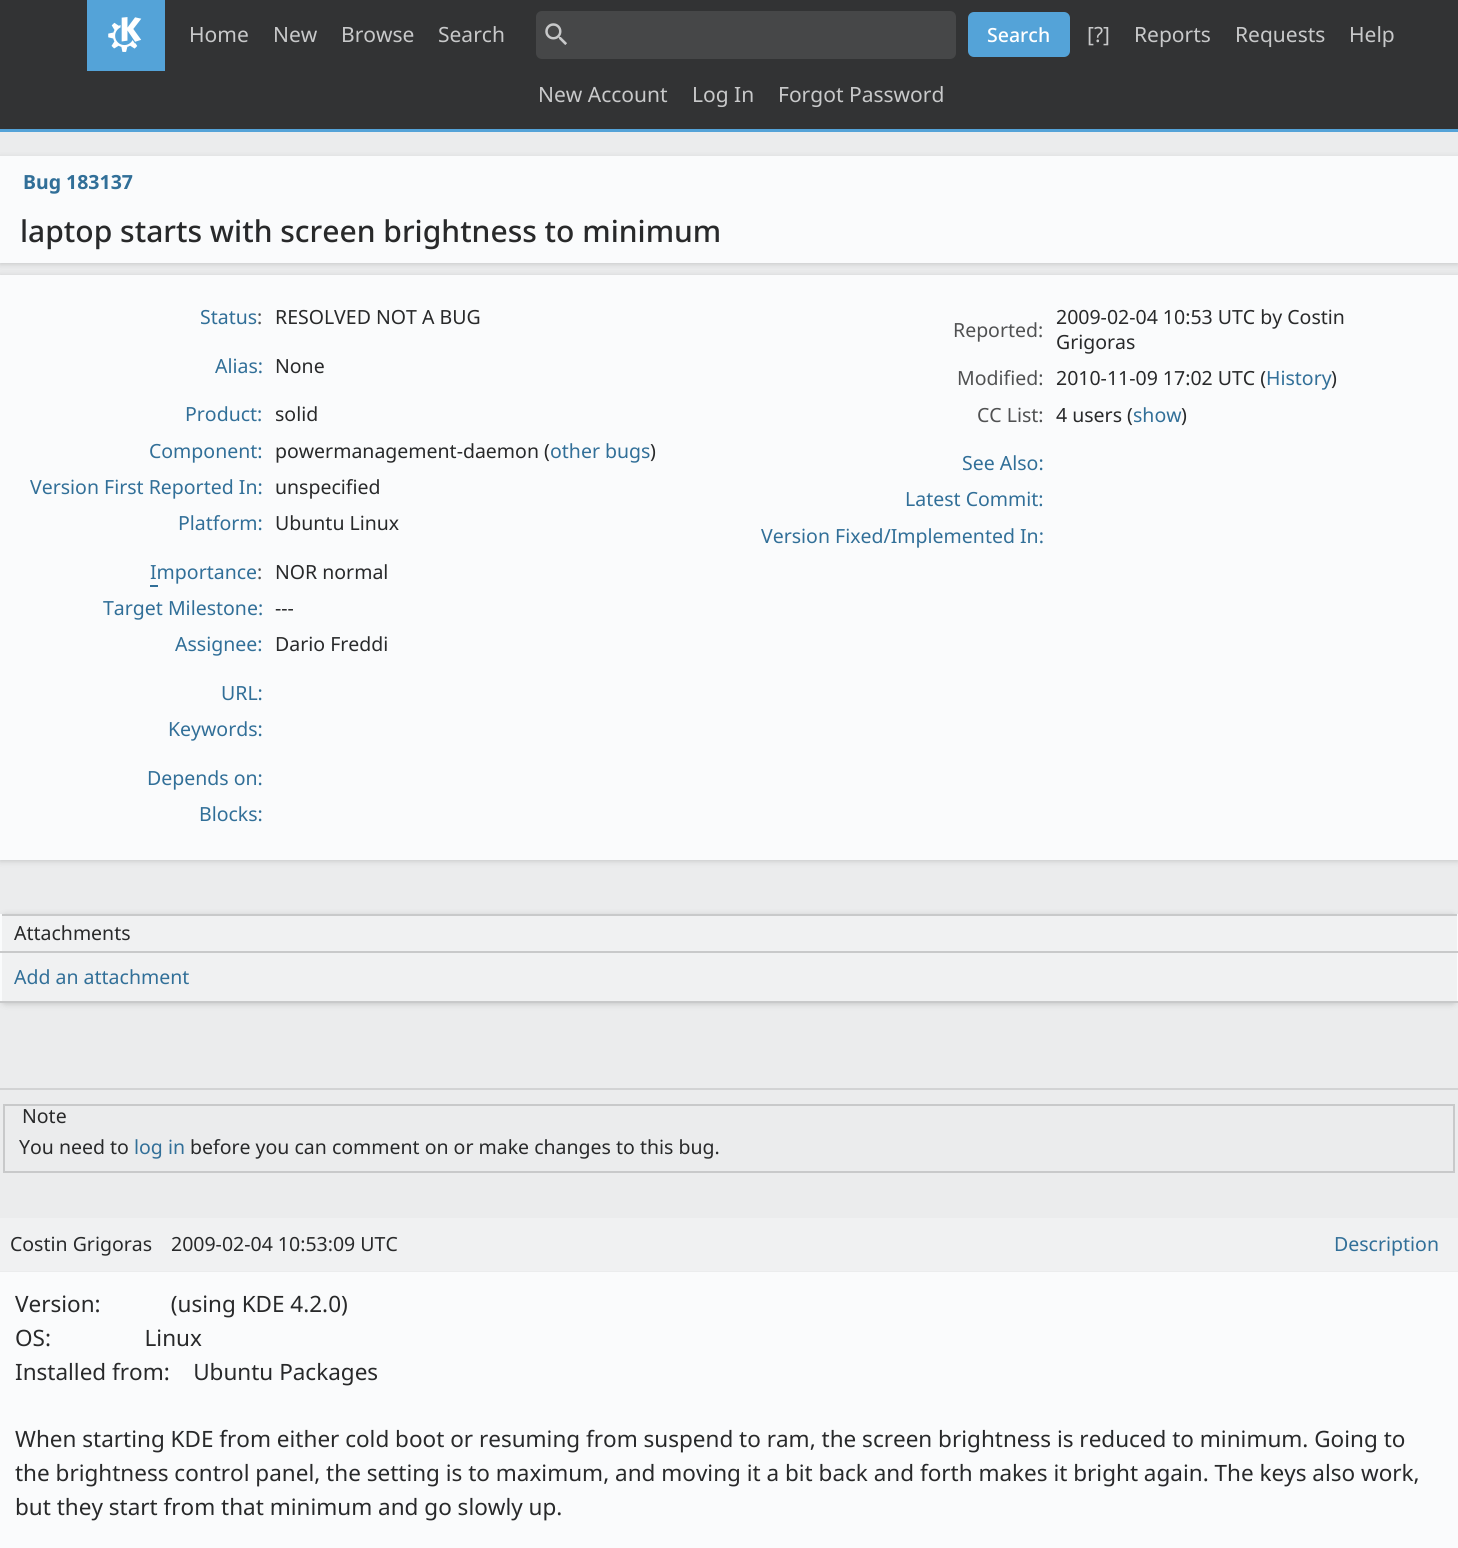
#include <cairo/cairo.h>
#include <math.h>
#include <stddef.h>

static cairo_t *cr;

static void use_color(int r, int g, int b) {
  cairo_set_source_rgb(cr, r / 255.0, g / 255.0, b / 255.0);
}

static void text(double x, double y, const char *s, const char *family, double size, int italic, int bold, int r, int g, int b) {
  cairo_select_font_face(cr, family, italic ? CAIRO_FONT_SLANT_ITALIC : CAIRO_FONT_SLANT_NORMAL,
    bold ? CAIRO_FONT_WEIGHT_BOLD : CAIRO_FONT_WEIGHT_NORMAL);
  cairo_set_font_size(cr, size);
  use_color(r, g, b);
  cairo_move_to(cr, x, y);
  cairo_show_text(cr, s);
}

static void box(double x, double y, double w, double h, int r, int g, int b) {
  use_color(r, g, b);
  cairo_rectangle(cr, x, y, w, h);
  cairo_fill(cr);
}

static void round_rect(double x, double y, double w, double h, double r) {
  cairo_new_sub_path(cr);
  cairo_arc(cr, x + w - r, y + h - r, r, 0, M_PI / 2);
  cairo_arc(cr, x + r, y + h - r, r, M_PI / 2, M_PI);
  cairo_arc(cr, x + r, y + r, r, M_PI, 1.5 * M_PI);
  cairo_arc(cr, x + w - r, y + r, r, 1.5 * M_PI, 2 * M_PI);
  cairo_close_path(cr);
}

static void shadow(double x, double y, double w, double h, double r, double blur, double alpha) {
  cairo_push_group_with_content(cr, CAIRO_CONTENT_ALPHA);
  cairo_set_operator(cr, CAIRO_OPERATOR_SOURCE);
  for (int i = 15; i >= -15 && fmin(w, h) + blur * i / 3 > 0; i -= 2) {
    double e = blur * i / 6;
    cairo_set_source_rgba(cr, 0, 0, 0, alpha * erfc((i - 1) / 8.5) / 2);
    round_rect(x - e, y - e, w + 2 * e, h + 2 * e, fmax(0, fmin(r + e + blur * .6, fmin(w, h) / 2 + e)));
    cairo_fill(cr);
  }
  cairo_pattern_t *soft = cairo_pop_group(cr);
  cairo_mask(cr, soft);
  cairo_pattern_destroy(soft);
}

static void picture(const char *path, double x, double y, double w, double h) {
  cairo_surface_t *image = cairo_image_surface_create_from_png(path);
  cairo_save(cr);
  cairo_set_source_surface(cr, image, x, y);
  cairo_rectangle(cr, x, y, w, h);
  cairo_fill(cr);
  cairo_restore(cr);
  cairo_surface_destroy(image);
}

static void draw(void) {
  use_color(235, 236, 237);
  cairo_paint(cr);
  box(0, 0, 1458, 129, 50, 51, 52);
  box(0, 129, 1458, 3, 84, 163, 216);
  box(87, 0, 78, 71, 84, 163, 216);
  picture("img_01.png", 108, 17, 34, 35);
  use_color(70, 71, 72);
  round_rect(536, 11, 420, 48, 6);
  cairo_fill(cr);
  picture("img_02.png", 545, 23, 22, 22);
  use_color(84, 163, 216);
  round_rect(969, 13, 100, 43, 5);
  cairo_fill_preserve(cr);
  cairo_stroke(cr);
  use_color(40, 41, 42);
  shadow(0, 158, 1458, 106, 0, 3, 0.2);
  box(0, 156, 1458, 107, 250, 251, 252);
  use_color(40, 41, 42);
  shadow(0, 276, 1458, 585, 0, 3, 0.2);
  box(0, 275, 1458, 585, 250, 251, 252);
  box(150, 585, 8, 2, 49, 111, 152);
  use_color(40, 41, 42);
  shadow(0, 915, 1458, 89, 6, 3, 0.2);
  box(0, 914, 1458, 2, 200, 201, 202);
  box(1457, 914, 1, 88, 250, 251, 252);
  box(0, 914, 2, 88, 250, 251, 252);
  box(0, 951, 1458, 2, 200, 201, 202);
  box(2, 916, 1455, 35, 240, 241, 242);
  box(2, 953, 1455, 48, 240, 241, 242);
  box(0, 1001, 1458, 2, 200, 201, 202);
  box(0, 1088, 1458, 2, 210, 211, 212);
  cairo_rectangle(cr, 4, 1105, 1450, 67);
  use_color(200, 201, 202);
  cairo_stroke(cr);
  box(0, 1218, 1458, 53, 240, 241, 242);
  box(0, 1272, 1458, 276, 250, 251, 252);
  text(189, 42, "Home", "Noto Sans", 21, 0, 0, 200, 201, 202);
  text(273, 42, "New", "Noto Sans", 21, 0, 0, 200, 201, 202);
  text(341, 42, "Browse", "Noto Sans", 21, 0, 0, 200, 201, 202);
  text(438, 42, "Search", "Noto Sans", 21, 0, 0, 200, 201, 202);
  text(987, 42, "Search", "Noto Sans Medium", 19.5, 0, 0, 255, 255, 255);
  text(1087, 42, "[?]", "Noto Sans", 21, 0, 0, 200, 201, 202);
  text(1134, 42, "Reports", "Noto Sans", 21, 0, 0, 200, 201, 202);
  text(1235, 42, "Requests", "Noto Sans", 21, 0, 0, 200, 201, 202);
  text(1349, 42, "Help", "Noto Sans", 21, 0, 0, 200, 201, 202);
  text(538, 102, "New Account", "Noto Sans", 21, 0, 0, 200, 201, 202);
  text(692, 102, "Log In", "Noto Sans", 21, 0, 0, 200, 201, 202);
  text(778, 102, "Forgot Password", "Noto Sans", 21, 0, 0, 200, 201, 202);
  text(23, 189, "Bug 183137", "Noto Sans", 19.5, 0, 1, 49, 111, 152);
  text(20, 242, "laptop starts with screen brightness to minimum", "Noto Sans Medium", 30, 0, 0, 40, 41, 42);
  text(200, 324, "Status", "Noto Sans", 19.5, 0, 0, 49, 111, 152);
  text(257, 324, ":", "Noto Sans", 19.5, 0, 0, 80, 81, 82);
  text(275, 324, "RESOLVED NOT A BUG", "Noto Sans", 19.5, 0, 0, 40, 41, 42);
  text(215, 373, "Alias:", "Noto Sans", 19.5, 0, 0, 49, 111, 152);
  text(275, 373, "None", "Noto Sans", 19.5, 0, 0, 40, 41, 42);
  text(185, 421, "Product:", "Noto Sans", 19.5, 0, 0, 49, 111, 152);
  text(275, 421, "solid", "Noto Sans", 19.5, 0, 0, 40, 41, 42);
  text(149, 458, "Component:", "Noto Sans", 19.5, 0, 0, 49, 111, 152);
  text(275, 458, "powermanagement-daemon (", "Noto Sans", 19.5, 0, 0, 40, 41, 42);
  text(550, 458, "other bugs", "Noto Sans", 19.5, 0, 0, 49, 111, 152);
  text(650, 458, ")", "Noto Sans", 19.5, 0, 0, 40, 41, 42);
  text(30, 494, "Version First Reported In:", "Noto Sans", 19.5, 0, 0, 49, 111, 152);
  text(275, 494, "unspecified", "Noto Sans", 19.5, 0, 0, 40, 41, 42);
  text(178, 530, "Platform:", "Noto Sans", 19.5, 0, 0, 49, 111, 152);
  text(275, 530, "Ubuntu Linux", "Noto Sans", 19.5, 0, 0, 40, 41, 42);
  text(150, 579, "Importance", "Noto Sans", 19.5, 0, 0, 49, 111, 152);
  text(257, 579, ":", "Noto Sans", 19.5, 0, 0, 80, 81, 82);
  text(275, 579, "NOR normal", "Noto Sans", 19.5, 0, 0, 40, 41, 42);
  text(103, 615, "Target Milestone:", "Noto Sans", 19.5, 0, 0, 49, 111, 152);
  text(275, 615, "---", "Noto Sans", 19.5, 0, 0, 40, 41, 42);
  text(175, 651, "Assignee:", "Noto Sans", 19.5, 0, 0, 49, 111, 152);
  text(275, 651, "Dario Freddi", "Noto Sans", 19.5, 0, 0, 40, 41, 42);
  text(221, 700, "URL:", "Noto Sans", 19.5, 0, 0, 49, 111, 152);
  text(168, 736, "Keywords:", "Noto Sans", 19.5, 0, 0, 49, 111, 152);
  text(147, 785, "Depends on:", "Noto Sans", 19.5, 0, 0, 49, 111, 152);
  text(199, 821, "Blocks:", "Noto Sans", 19.5, 0, 0, 49, 111, 152);
  text(953, 337, "Reported:", "Noto Sans", 19.5, 0, 0, 80, 81, 82);
  text(1056, 324, "2009-02-04 10:53 UTC by Costin", "Noto Sans", 19.5, 0, 0, 40, 41, 42);
  text(1056, 349, "Grigoras", "Noto Sans", 19.5, 0, 0, 40, 41, 42);
  text(957, 385, "Modified:", "Noto Sans", 19.5, 0, 0, 80, 81, 82);
  text(1056, 385, "2010-11-09 17:02 UTC (", "Noto Sans", 19.5, 0, 0, 40, 41, 42);
  text(1266, 385, "History", "Noto Sans", 19.5, 0, 0, 49, 111, 152);
  text(1331, 385, ")", "Noto Sans", 19.5, 0, 0, 40, 41, 42);
  text(977, 422, "CC List:", "Noto Sans", 19.5, 0, 0, 80, 81, 82);
  text(1056, 422, "4 users (", "Noto Sans", 19.5, 0, 0, 40, 41, 42);
  text(1133, 422, "show", "Noto Sans", 19.5, 0, 0, 49, 111, 152);
  text(1181, 422, ")", "Noto Sans", 19.5, 0, 0, 40, 41, 42);
  text(962, 470, "See Also:", "Noto Sans", 19.5, 0, 0, 49, 111, 152);
  text(905, 506, "Latest Commit:", "Noto Sans", 19.5, 0, 0, 49, 111, 152);
  text(761, 543, "Version Fixed/Implemented In:", "Noto Sans", 19.5, 0, 0, 49, 111, 152);
  text(14, 940, "Attachments", "Noto Sans", 19.5, 0, 0, 40, 41, 42);
  text(14, 984, "Add an attachment", "Noto Sans", 19.5, 0, 0, 49, 111, 152);
  text(22, 1123, "Note", "Noto Sans", 19.5, 0, 0, 40, 41, 42);
  text(19, 1154, "You need to", "Noto Sans", 19.5, 0, 0, 40, 41, 42);
  text(134, 1154, "log in", "Noto Sans", 19.5, 0, 0, 49, 111, 152);
  text(190, 1154, "before you can comment on or make changes to this bug.", "Noto Sans", 19.5, 0, 0, 40, 41, 42);
  text(10, 1251, "Costin Grigoras", "Noto Sans", 19.5, 0, 0, 40, 41, 42);
  text(171, 1251, "2009-02-04 10:53:09 UTC", "Noto Sans", 19.5, 0, 0, 40, 41, 42);
  text(1334, 1251, "Description", "Noto Sans", 19.5, 0, 0, 49, 111, 152);
  text(15, 1312, "Version:            (using KDE 4.2.0)", "Noto Sans", 22.5, 0, 0, 40, 41, 42);
  text(15, 1346, "OS:                Linux", "Noto Sans", 22.5, 0, 0, 40, 41, 42);
  text(15, 1380, "Installed from:    Ubuntu Packages", "Noto Sans", 22.5, 0, 0, 40, 41, 42);
  text(15, 1447, "When starting KDE from either cold boot or resuming from suspend to ram, the screen brightness is reduced to minimum. Going to", "Noto Sans", 22.5, 0, 0, 40, 41, 42);
  text(15, 1481, "the brightness control panel, the setting is to maximum, and moving it a bit back and forth makes it bright again. The keys also work,", "Noto Sans", 22.5, 0, 0, 40, 41, 42);
  text(15, 1515, "but they start from that minimum and go slowly up.", "Noto Sans", 22.5, 0, 0, 40, 41, 42);
}

int main(void) {
  cairo_surface_t *surface = cairo_image_surface_create(CAIRO_FORMAT_RGB24, 1458, 1548);
  cr = cairo_create(surface);
  cairo_font_options_t *options = cairo_font_options_create();
  cairo_font_options_set_hint_metrics(options, CAIRO_HINT_METRICS_OFF);
  cairo_font_options_set_hint_style(options, CAIRO_HINT_STYLE_NONE);
  cairo_set_font_options(cr, options);
  cairo_set_miter_limit(cr, 4);
  draw();
  cairo_surface_write_to_png(surface, "out.png");
  cairo_font_options_destroy(options);
  cairo_destroy(cr);
  cairo_surface_destroy(surface);
  return 0;
}
